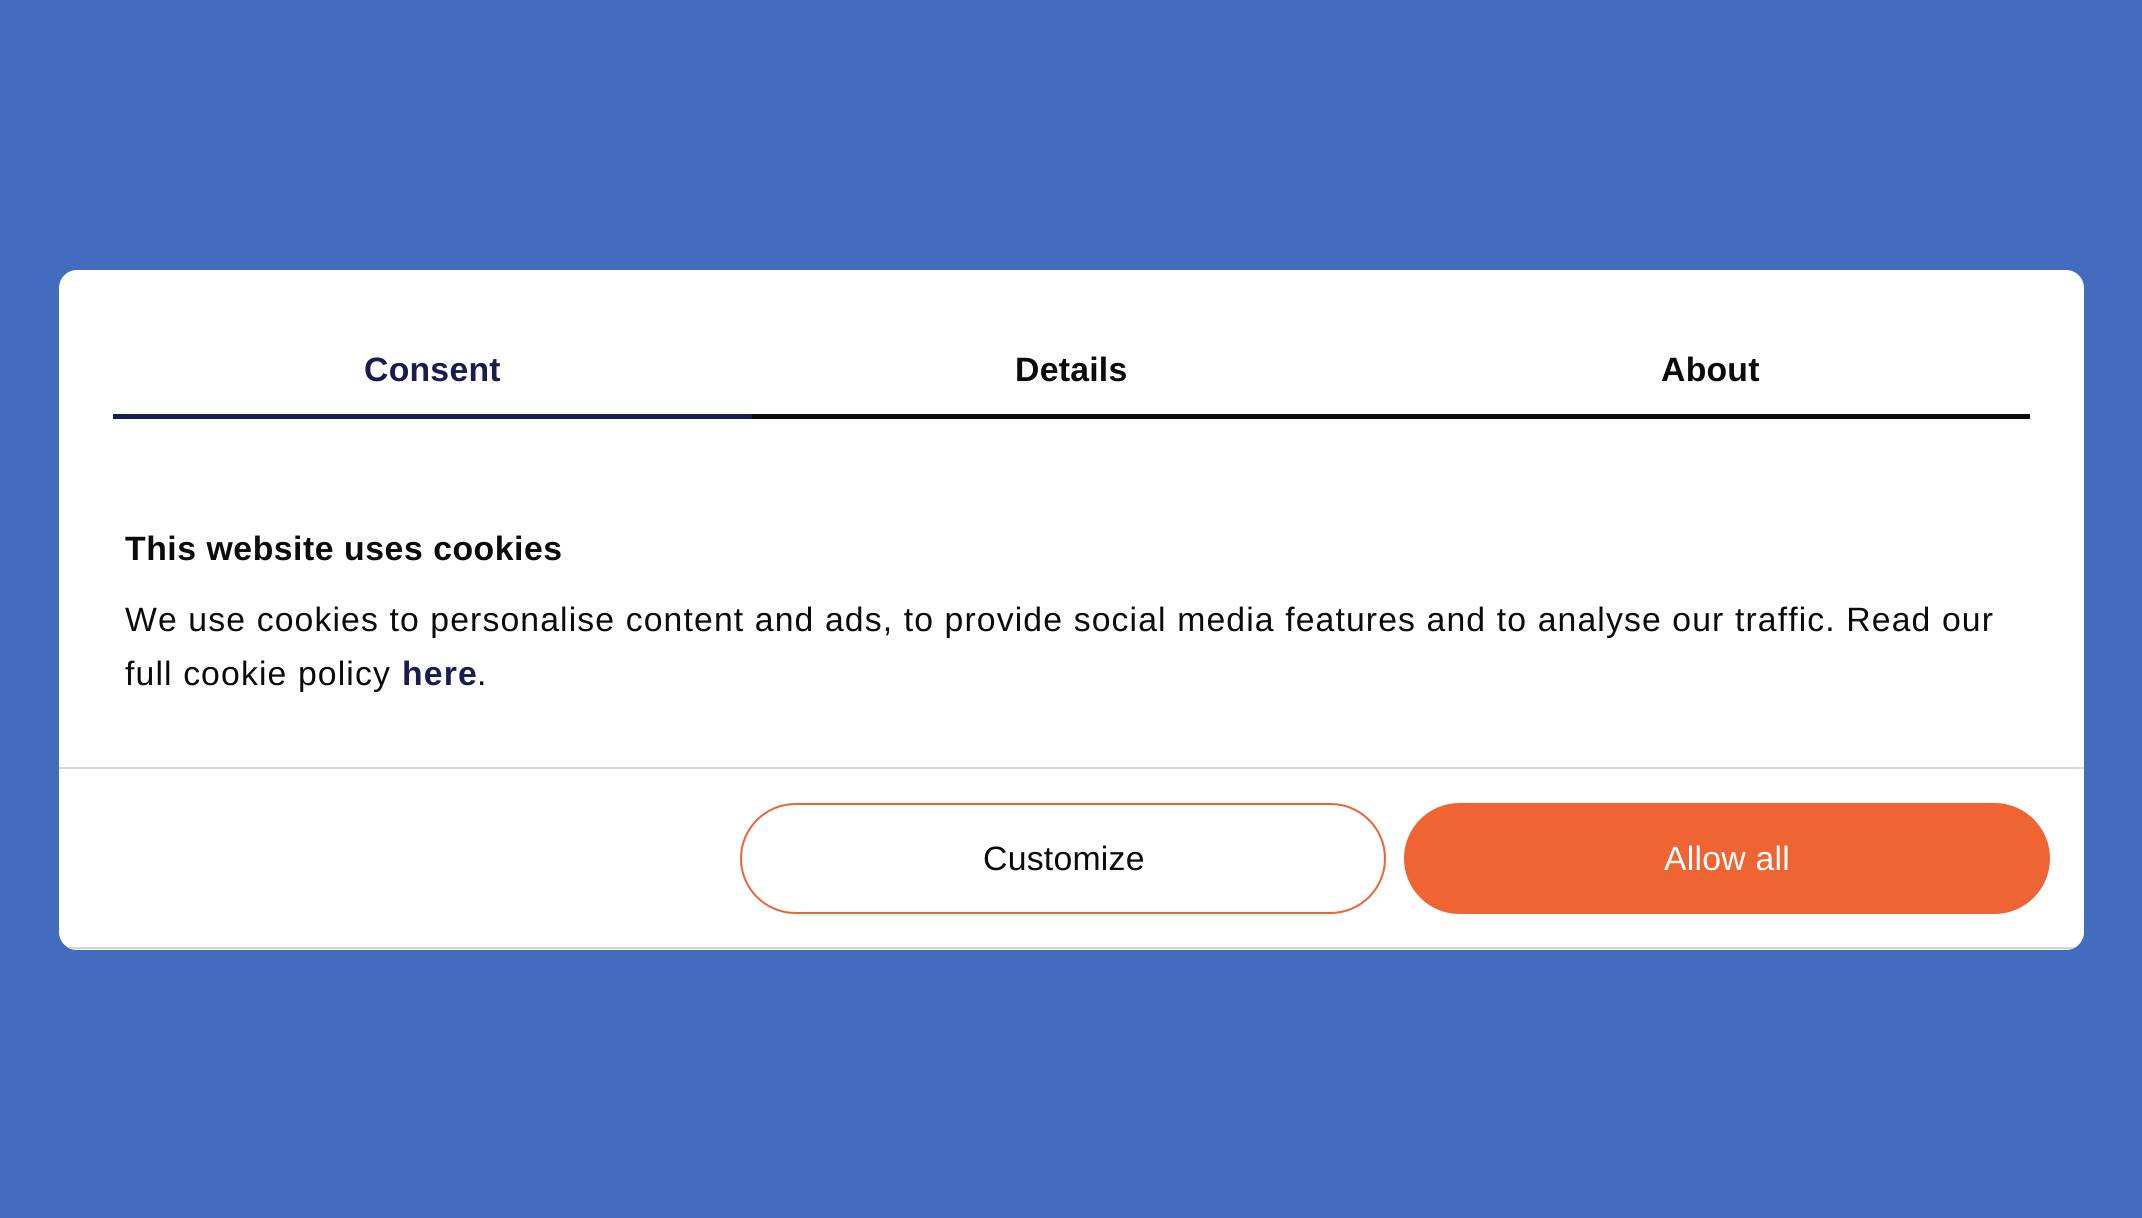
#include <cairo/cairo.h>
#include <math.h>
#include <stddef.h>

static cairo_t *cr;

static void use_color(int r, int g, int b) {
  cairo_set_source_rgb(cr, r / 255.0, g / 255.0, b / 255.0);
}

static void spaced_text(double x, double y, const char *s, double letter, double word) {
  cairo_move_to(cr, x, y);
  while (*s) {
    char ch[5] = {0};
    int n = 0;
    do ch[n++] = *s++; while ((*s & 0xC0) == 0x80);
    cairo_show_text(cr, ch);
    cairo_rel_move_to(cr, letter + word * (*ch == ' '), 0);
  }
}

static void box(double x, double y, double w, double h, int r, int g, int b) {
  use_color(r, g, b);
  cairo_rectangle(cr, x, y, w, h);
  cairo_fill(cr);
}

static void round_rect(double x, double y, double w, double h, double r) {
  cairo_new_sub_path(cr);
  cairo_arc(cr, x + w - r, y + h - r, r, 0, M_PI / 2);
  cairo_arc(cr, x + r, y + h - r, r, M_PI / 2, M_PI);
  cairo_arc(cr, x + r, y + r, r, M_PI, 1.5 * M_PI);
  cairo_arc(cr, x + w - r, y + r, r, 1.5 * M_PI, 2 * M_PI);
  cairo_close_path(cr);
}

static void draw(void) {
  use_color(67, 107, 190);
  cairo_paint(cr);
  use_color(255, 255, 255);
  round_rect(59, 270, 2025, 680, 18);
  cairo_fill(cr);
  box(113, 414, 639, 5, 25, 28, 83);
  box(752, 414, 1278, 5, 11, 11, 11);
  box(59, 767, 2025, 2, 214, 214, 214);
  cairo_save(cr);
  round_rect(59, 270, 2025, 680, 18);
  cairo_clip(cr);
  box(59, 947, 2025, 2, 214, 214, 214);
  cairo_restore(cr);
  round_rect(741, 804, 644, 109, 54.5);
  use_color(239, 100, 51);
  cairo_stroke(cr);
  round_rect(1405, 804, 644, 109, 54.5);
  cairo_fill_preserve(cr);
  cairo_stroke(cr);
  cairo_select_font_face(cr, "Liberation Sans", CAIRO_FONT_SLANT_NORMAL, CAIRO_FONT_WEIGHT_BOLD);
  cairo_set_font_size(cr, 33.75);
  use_color(25, 28, 83);
  spaced_text(364, 381, "Consent", 0.25, 0);
  use_color(11, 11, 11);
  spaced_text(1015, 381, "Details", 0.25, 0);
  spaced_text(1661, 381, "About", 0.25, 0);
  spaced_text(125, 560, "This website uses cookies", 0.55, 0);
  cairo_select_font_face(cr, "Liberation Sans", CAIRO_FONT_SLANT_NORMAL, CAIRO_FONT_WEIGHT_NORMAL);
  spaced_text(125, 631, "We use cookies to personalise content and ads, to provide social media features and to analyse our traffic. Read our", 1.12, 0);
  spaced_text(125, 685, "full cookie policy", 1.12, 0);
  cairo_select_font_face(cr, "Liberation Sans", CAIRO_FONT_SLANT_NORMAL, CAIRO_FONT_WEIGHT_BOLD);
  use_color(25, 28, 83);
  spaced_text(402, 685, "here", 1.12, 0);
  cairo_select_font_face(cr, "Liberation Sans", CAIRO_FONT_SLANT_NORMAL, CAIRO_FONT_WEIGHT_NORMAL);
  use_color(11, 11, 11);
  spaced_text(477, 685, ".", 1.12, 0);
  spaced_text(983, 870, "Customize", 0.25, 0);
  use_color(255, 255, 255);
  spaced_text(1664, 870, "Allow all", 0.25, 0);
}

int main(void) {
  cairo_surface_t *surface = cairo_image_surface_create(CAIRO_FORMAT_RGB24, 2142, 1218);
  cr = cairo_create(surface);
  cairo_font_options_t *options = cairo_font_options_create();
  cairo_font_options_set_hint_metrics(options, CAIRO_HINT_METRICS_OFF);
  cairo_font_options_set_hint_style(options, CAIRO_HINT_STYLE_NONE);
  cairo_set_font_options(cr, options);
  cairo_set_miter_limit(cr, 4);
  draw();
  cairo_surface_write_to_png(surface, "out.png");
  cairo_font_options_destroy(options);
  cairo_destroy(cr);
  cairo_surface_destroy(surface);
  return 0;
}
